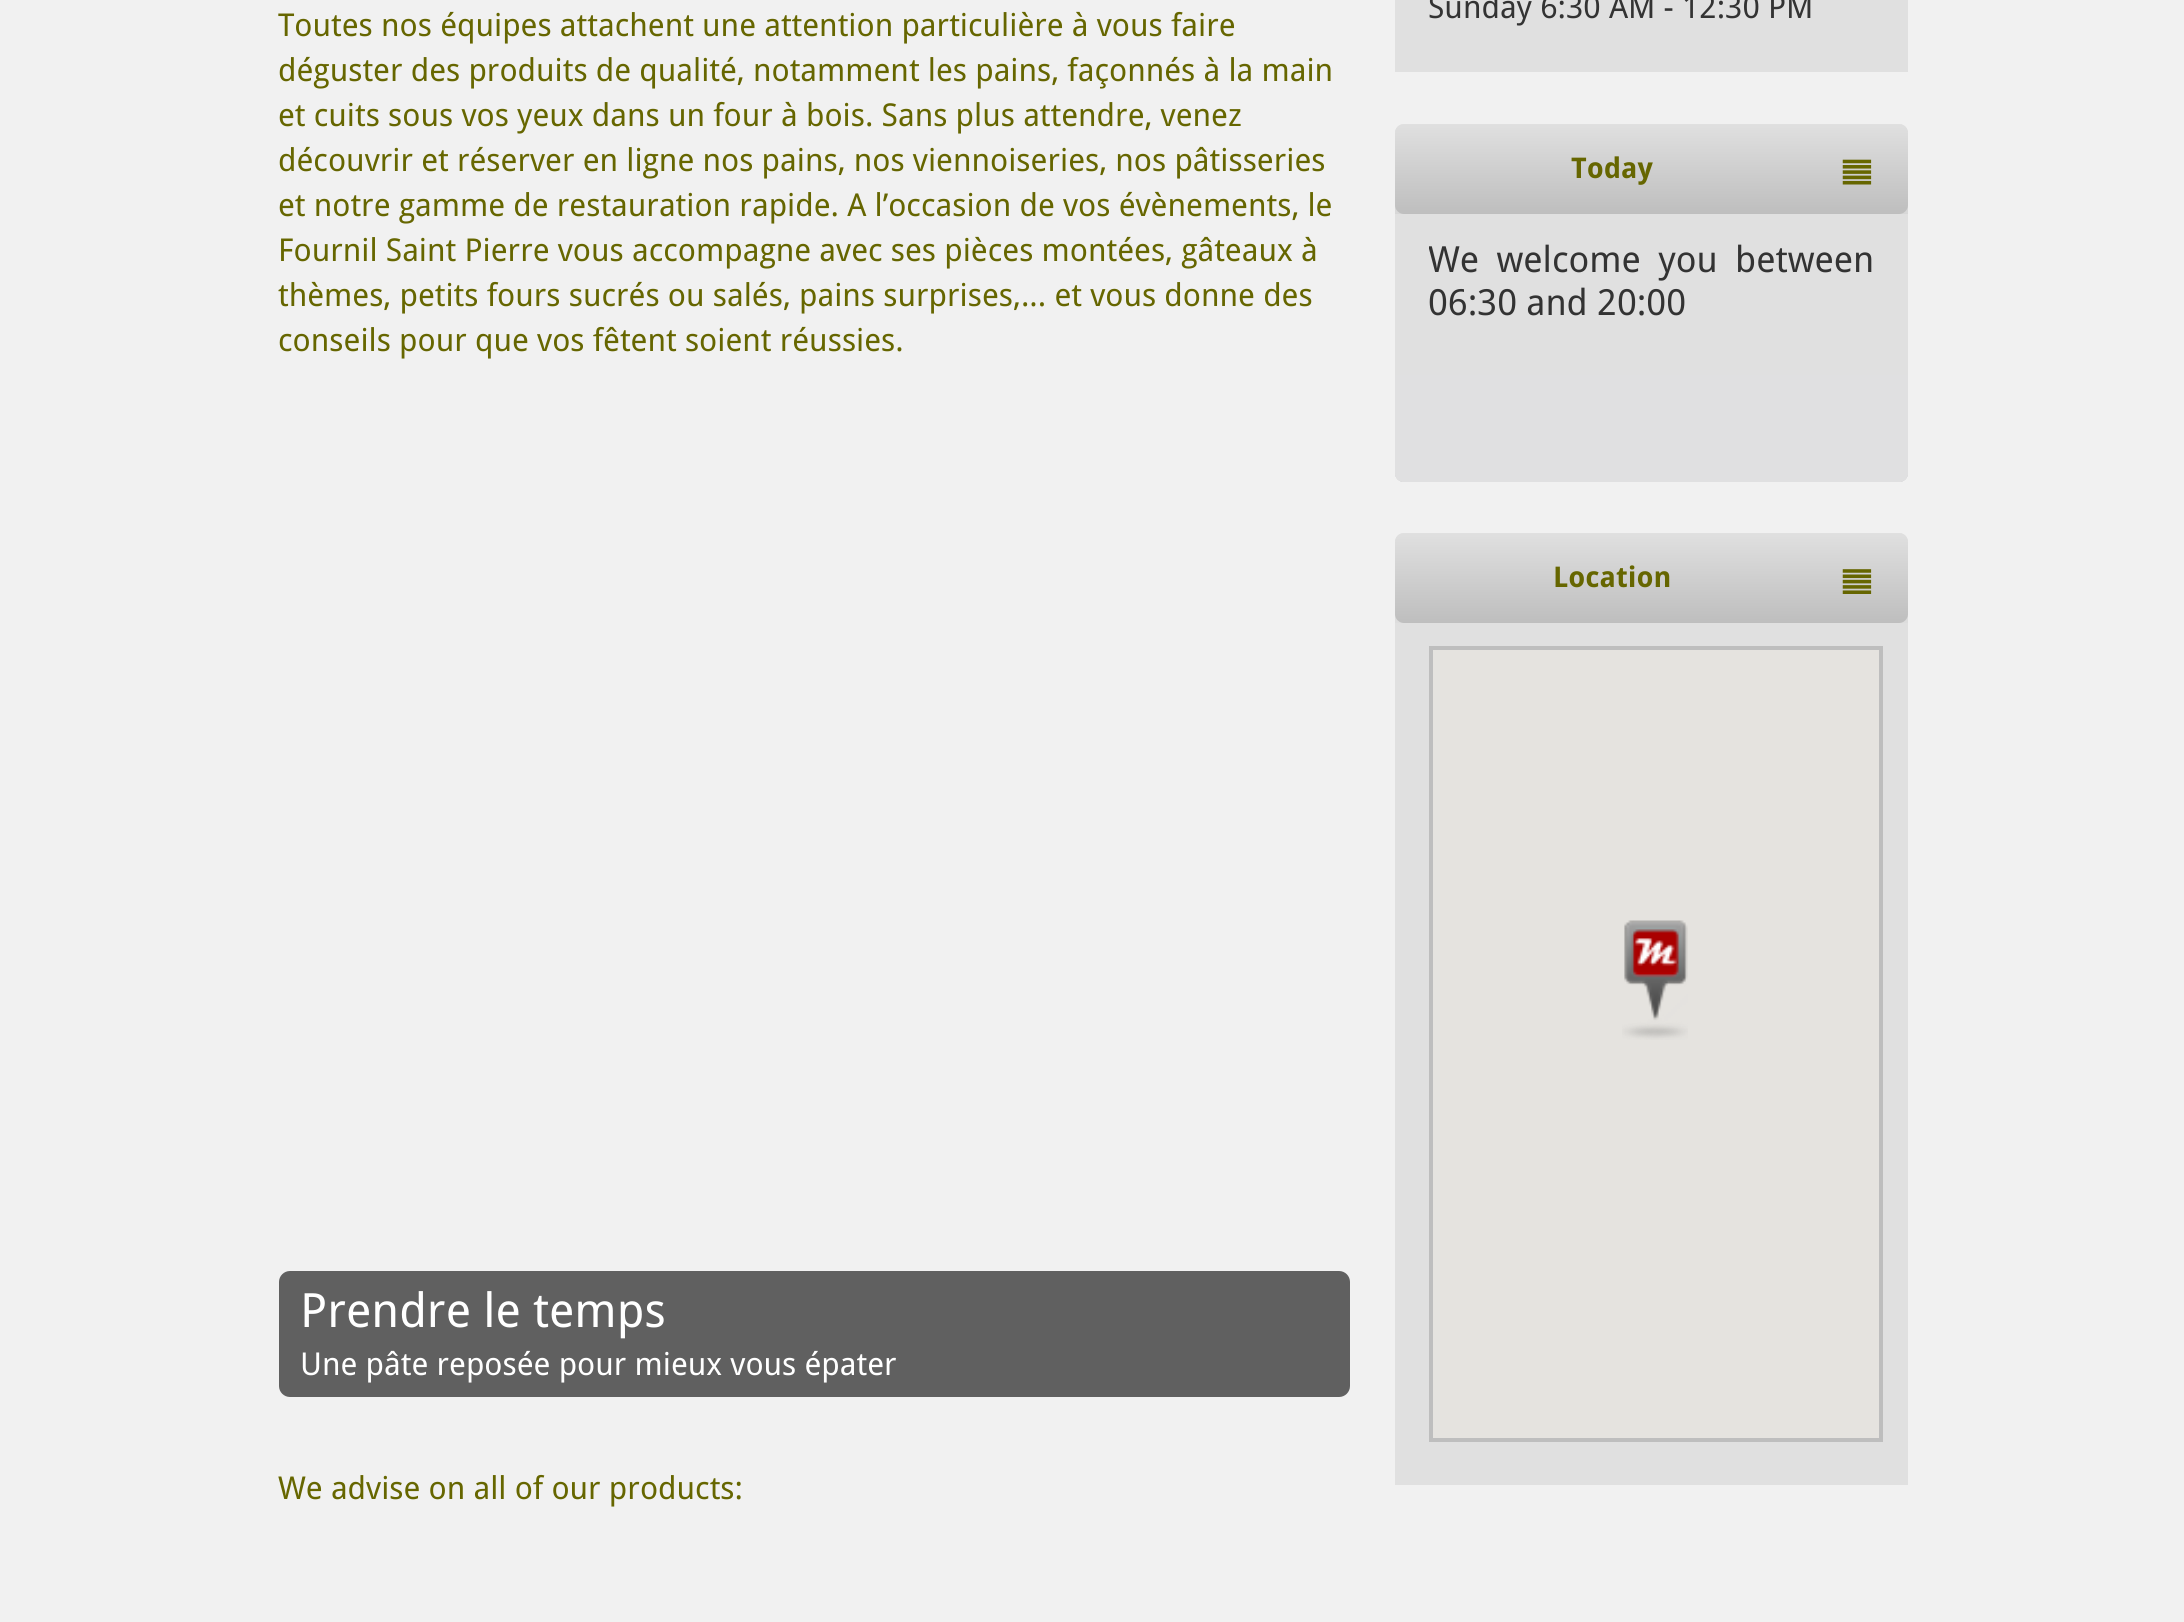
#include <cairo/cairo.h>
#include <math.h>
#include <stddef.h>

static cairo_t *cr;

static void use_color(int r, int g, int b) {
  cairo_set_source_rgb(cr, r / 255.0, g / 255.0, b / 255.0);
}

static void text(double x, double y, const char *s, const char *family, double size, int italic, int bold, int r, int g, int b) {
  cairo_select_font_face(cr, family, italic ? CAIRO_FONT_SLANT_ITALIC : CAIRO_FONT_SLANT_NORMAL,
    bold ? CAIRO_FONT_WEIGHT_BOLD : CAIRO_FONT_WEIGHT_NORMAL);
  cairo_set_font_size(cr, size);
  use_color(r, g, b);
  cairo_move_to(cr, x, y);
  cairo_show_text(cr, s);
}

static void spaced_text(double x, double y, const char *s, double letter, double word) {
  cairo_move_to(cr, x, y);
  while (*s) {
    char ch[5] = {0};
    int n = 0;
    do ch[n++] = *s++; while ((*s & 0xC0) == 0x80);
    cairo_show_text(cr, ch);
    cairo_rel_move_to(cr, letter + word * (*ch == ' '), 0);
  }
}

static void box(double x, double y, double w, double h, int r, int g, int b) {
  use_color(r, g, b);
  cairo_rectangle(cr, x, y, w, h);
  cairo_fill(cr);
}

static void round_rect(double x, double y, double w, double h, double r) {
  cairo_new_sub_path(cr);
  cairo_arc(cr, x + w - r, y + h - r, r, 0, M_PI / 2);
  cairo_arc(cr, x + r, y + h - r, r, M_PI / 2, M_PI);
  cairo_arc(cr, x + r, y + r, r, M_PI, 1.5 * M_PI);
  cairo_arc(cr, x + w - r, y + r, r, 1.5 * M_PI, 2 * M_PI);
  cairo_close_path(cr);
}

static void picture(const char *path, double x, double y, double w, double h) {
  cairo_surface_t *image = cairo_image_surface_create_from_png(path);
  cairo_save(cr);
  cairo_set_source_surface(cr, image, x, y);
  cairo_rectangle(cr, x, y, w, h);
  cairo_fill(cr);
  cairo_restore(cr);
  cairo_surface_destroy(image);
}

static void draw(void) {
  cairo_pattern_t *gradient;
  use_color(241, 241, 241);
  cairo_paint(cr);
  use_color(96, 96, 96);
  round_rect(279, 1271, 1071, 126, 11);
  cairo_fill(cr);
  box(1395, 0, 513, 72, 224, 224, 224);
  gradient = cairo_pattern_create_linear(1652, 124, 1652, 482);
  cairo_pattern_add_color_stop_rgba(gradient, 0, 0.878, 0.878, 0.878, 1);
  cairo_pattern_add_color_stop_rgba(gradient, 1, 0.745, 0.745, 0.745, 1);
  cairo_set_source(cr, gradient);
  cairo_pattern_destroy(gradient);
  round_rect(1395, 124, 513, 358, 9);
  cairo_fill(cr);
  gradient = cairo_pattern_create_linear(1652, 124, 1652, 214);
  cairo_pattern_add_color_stop_rgba(gradient, 0, 0.878, 0.878, 0.878, 1);
  cairo_pattern_add_color_stop_rgba(gradient, 1, 0.745, 0.745, 0.745, 1);
  cairo_set_source(cr, gradient);
  cairo_pattern_destroy(gradient);
  round_rect(1395, 124, 513, 90, 9);
  cairo_fill(cr);
  picture("img_01.png", 1842, 159, 30, 26);
  use_color(224, 224, 224);
  cairo_new_path(cr);
  cairo_move_to(cr, 1395, 214);
  cairo_line_to(cr, 1908, 214);
  cairo_line_to(cr, 1908, 473);
  cairo_curve_to(cr, 1908, 478, 1904, 482, 1899, 482);
  cairo_line_to(cr, 1404, 482);
  cairo_curve_to(cr, 1399, 482, 1395, 478, 1395, 473);
  cairo_close_path(cr);
  cairo_fill(cr);
  gradient = cairo_pattern_create_linear(1652, 216, 1652, 482);
  cairo_pattern_add_color_stop_rgba(gradient, 0, 0.878, 0.878, 0.878, 1);
  cairo_pattern_add_color_stop_rgba(gradient, 1, 0.878, 0.878, 0.882, 1);
  cairo_set_source(cr, gradient);
  cairo_pattern_destroy(gradient);
  cairo_new_path(cr);
  cairo_move_to(cr, 1395, 216);
  cairo_line_to(cr, 1908, 216);
  cairo_line_to(cr, 1908, 473);
  cairo_curve_to(cr, 1908, 478, 1904, 482, 1899, 482);
  cairo_line_to(cr, 1404, 482);
  cairo_curve_to(cr, 1399, 482, 1395, 478, 1395, 473);
  cairo_close_path(cr);
  cairo_fill(cr);
  gradient = cairo_pattern_create_linear(1652, 533, 1652, 1485);
  cairo_pattern_add_color_stop_rgba(gradient, 0, 0.878, 0.878, 0.878, 1);
  cairo_pattern_add_color_stop_rgba(gradient, 1, 0.745, 0.745, 0.745, 1);
  cairo_set_source(cr, gradient);
  cairo_pattern_destroy(gradient);
  round_rect(1395, 533, 513, 952, 9);
  cairo_fill(cr);
  gradient = cairo_pattern_create_linear(1652, 533, 1652, 623);
  cairo_pattern_add_color_stop_rgba(gradient, 0, 0.878, 0.878, 0.878, 1);
  cairo_pattern_add_color_stop_rgba(gradient, 1, 0.745, 0.745, 0.745, 1);
  cairo_set_source(cr, gradient);
  cairo_pattern_destroy(gradient);
  round_rect(1395, 533, 513, 90, 9);
  cairo_fill(cr);
  picture("img_02.png", 1842, 569, 30, 25);
  box(1395, 623, 513, 862, 224, 224, 224);
  cairo_rectangle(cr, 1431.5, 648.5, 449, 791);
  use_color(190, 190, 190);
  cairo_set_line_width(cr, 5);
  cairo_stroke(cr);
  box(1433, 650, 446, 788, 229, 227, 223);
  picture("img_03.png", 1622, 920, 66, 120);
  text(278, 36, "Toutes nos équipes attachent une attention particulière à vous faire", "Droid Sans", 31.5, 0, 0, 102, 102, 0);
  text(278, 81, "déguster des produits de qualité, notamment les pains, façonnés à la main", "Droid Sans", 31.5, 0, 0, 102, 102, 0);
  text(278, 126, "et cuits sous vos yeux dans un four à bois. Sans plus attendre, venez", "Droid Sans", 31.5, 0, 0, 102, 102, 0);
  text(278, 171, "découvrir et réserver en ligne nos pains, nos viennoiseries, nos pâtisseries", "Droid Sans", 31.5, 0, 0, 102, 102, 0);
  text(278, 216, "et notre gamme de restauration rapide. A l’occasion de vos évènements, le", "Droid Sans", 31.5, 0, 0, 102, 102, 0);
  text(278, 261, "Fournil Saint Pierre vous accompagne avec ses pièces montées, gâteaux à", "Droid Sans", 31.5, 0, 0, 102, 102, 0);
  text(278, 306, "thèmes, petits fours sucrés ou salés, pains surprises,... et vous donne des", "Droid Sans", 31.5, 0, 0, 102, 102, 0);
  text(278, 351, "conseils pour que vos fêtent soient réussies.", "Droid Sans", 31.5, 0, 0, 102, 102, 0);
  text(300, 1327, "Prendre le temps", "Droid Sans", 47.25, 0, 0, 255, 255, 255);
  text(300, 1375, "Une pâte reposée pour mieux vous épater", "Droid Sans", 31.5, 0, 0, 255, 255, 255);
  text(278, 1499, "We advise on all of our products:", "Droid Sans", 31.5, 0, 0, 102, 102, 0);
  text(1428, 18, "Sunday 6:30 AM - 12:30 PM", "Droid Sans", 31.5, 0, 0, 51, 51, 51);
  text(1571, 178, "Today", "Droid Sans", 28.5, 0, 1, 102, 102, 0);
  cairo_save(cr);
  cairo_rectangle(cr, 1429, 236, 445, 88);
  cairo_clip(cr);
  cairo_select_font_face(cr, "Droid Sans", CAIRO_FONT_SLANT_NORMAL, CAIRO_FONT_WEIGHT_NORMAL);
  cairo_set_font_size(cr, 36);
  use_color(51, 51, 51);
  spaced_text(1428, 272, "We welcome you between", 0, 8);
  cairo_restore(cr);
  text(1428, 315, "06:30 and 20:00", "Droid Sans", 36, 0, 0, 51, 51, 51);
  text(1553, 587, "Location", "Droid Sans", 28.5, 0, 1, 102, 102, 0);
}

int main(void) {
  cairo_surface_t *surface = cairo_image_surface_create(CAIRO_FORMAT_RGB24, 2184, 1622);
  cr = cairo_create(surface);
  cairo_font_options_t *options = cairo_font_options_create();
  cairo_font_options_set_hint_metrics(options, CAIRO_HINT_METRICS_OFF);
  cairo_font_options_set_hint_style(options, CAIRO_HINT_STYLE_NONE);
  cairo_set_font_options(cr, options);
  cairo_set_miter_limit(cr, 4);
  draw();
  cairo_surface_write_to_png(surface, "out.png");
  cairo_font_options_destroy(options);
  cairo_destroy(cr);
  cairo_surface_destroy(surface);
  return 0;
}
